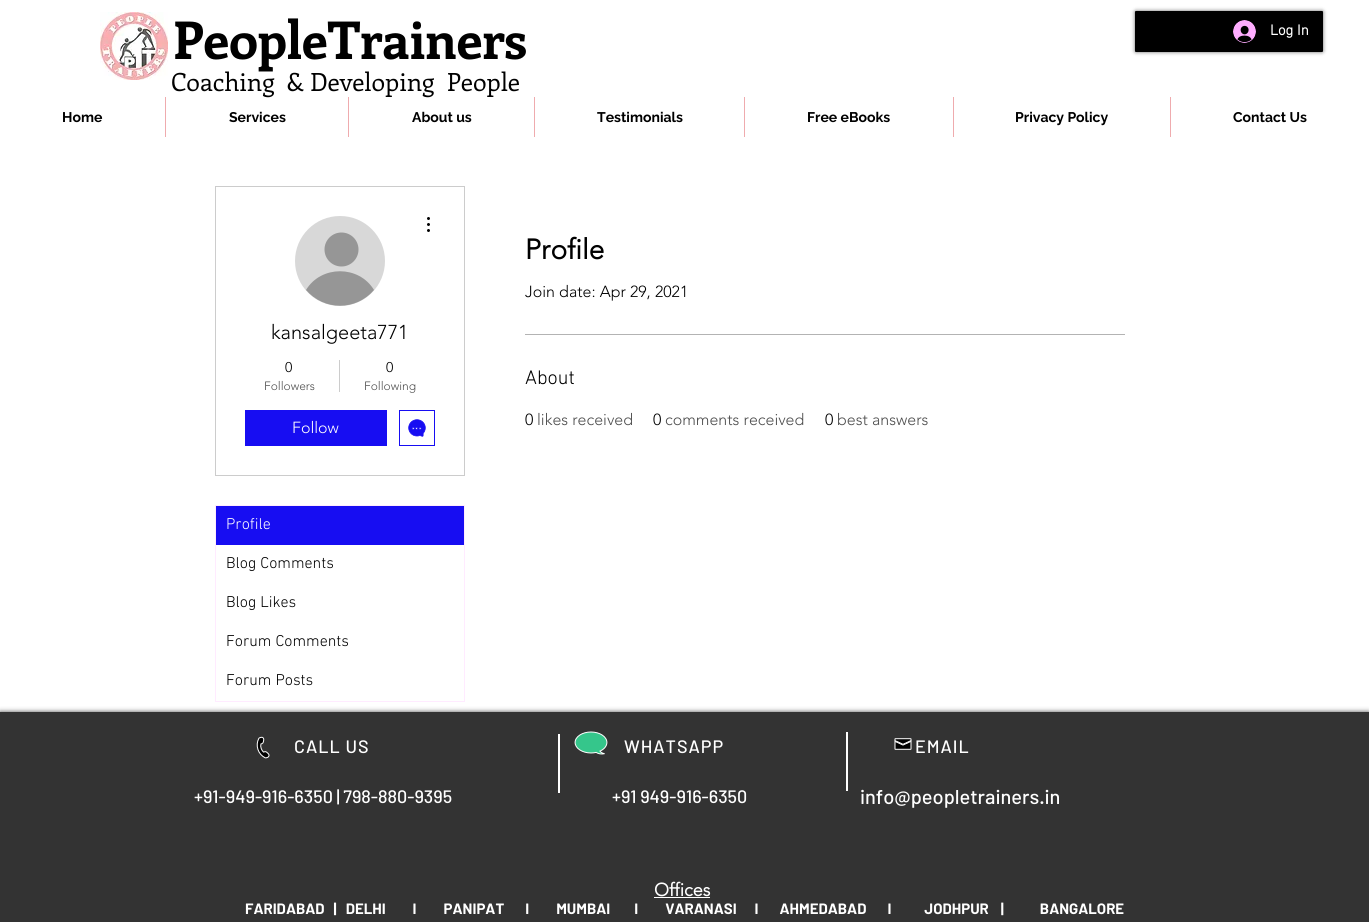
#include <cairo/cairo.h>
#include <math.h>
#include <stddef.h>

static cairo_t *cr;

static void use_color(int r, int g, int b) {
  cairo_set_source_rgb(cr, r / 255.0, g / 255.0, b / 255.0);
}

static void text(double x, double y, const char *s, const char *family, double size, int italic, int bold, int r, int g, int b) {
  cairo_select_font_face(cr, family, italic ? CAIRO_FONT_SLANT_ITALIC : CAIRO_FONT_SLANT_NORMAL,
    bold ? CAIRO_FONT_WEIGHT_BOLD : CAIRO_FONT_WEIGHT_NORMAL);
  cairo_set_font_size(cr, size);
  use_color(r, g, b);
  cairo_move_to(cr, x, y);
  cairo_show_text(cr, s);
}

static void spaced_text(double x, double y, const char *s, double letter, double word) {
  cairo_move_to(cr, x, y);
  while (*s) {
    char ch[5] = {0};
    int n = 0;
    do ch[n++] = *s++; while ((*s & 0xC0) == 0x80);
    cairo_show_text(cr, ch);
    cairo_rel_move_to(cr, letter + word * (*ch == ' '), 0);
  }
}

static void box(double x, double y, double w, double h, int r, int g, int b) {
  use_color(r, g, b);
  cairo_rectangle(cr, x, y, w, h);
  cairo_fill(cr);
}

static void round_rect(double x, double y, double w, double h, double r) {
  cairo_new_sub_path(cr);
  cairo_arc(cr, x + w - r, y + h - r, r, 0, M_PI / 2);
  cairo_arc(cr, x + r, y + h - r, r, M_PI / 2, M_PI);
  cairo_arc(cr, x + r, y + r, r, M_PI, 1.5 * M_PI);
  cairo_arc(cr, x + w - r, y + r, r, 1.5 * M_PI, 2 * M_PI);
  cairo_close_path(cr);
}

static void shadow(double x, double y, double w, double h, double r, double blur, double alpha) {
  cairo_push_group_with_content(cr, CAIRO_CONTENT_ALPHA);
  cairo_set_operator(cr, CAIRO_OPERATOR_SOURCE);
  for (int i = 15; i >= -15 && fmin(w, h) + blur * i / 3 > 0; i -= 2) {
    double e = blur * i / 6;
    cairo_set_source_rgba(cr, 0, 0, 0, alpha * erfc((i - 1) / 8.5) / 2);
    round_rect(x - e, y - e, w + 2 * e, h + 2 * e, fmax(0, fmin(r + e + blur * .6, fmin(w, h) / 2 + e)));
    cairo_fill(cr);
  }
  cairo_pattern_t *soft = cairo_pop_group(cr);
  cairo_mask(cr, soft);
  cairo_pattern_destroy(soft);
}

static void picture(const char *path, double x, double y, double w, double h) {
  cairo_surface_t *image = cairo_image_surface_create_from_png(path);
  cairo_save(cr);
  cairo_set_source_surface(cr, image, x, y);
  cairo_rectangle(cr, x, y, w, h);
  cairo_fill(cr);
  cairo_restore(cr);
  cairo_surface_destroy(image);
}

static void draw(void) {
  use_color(255, 255, 255);
  cairo_paint(cr);
  picture("img_01.png", 100, 12, 68, 68);
  use_color(0, 0, 0);
  shadow(1135, 11, 188, 41, 1, 2, 0.6);
  use_color(0, 0, 0);
  round_rect(1135, 11, 188, 41, 1);
  cairo_fill(cr);
  picture("img_02.png", 1233, 20, 23, 23);
  box(165, 97, 1, 40, 239, 171, 174);
  box(534, 97, 1, 40, 239, 171, 174);
  box(744, 97, 1, 40, 239, 171, 174);
  box(953, 97, 1, 40, 239, 171, 174);
  box(1170, 97, 1, 40, 239, 171, 174);
  cairo_rectangle(cr, 215.5, 186.5, 249, 289);
  use_color(204, 204, 204);
  cairo_set_line_width(cr, 1);
  cairo_stroke(cr);
  use_color(216, 216, 216);
  cairo_arc(cr, 340, 261, 45, 0, 2 * M_PI);
  cairo_fill(cr);
  use_color(150, 150, 150);
  cairo_arc(cr, 341.5, 249.5, 17, 0, 2 * M_PI);
  cairo_fill(cr);
  cairo_new_path(cr);
  cairo_move_to(cr, 374, 290);
  cairo_curve_to(cr, 356, 311, 324, 311, 306, 290);
  cairo_curve_to(cr, 321, 265, 359, 265, 374, 290);
  cairo_close_path(cr);
  cairo_fill(cr);
  picture("img_03.png", 427, 217, 3, 15);
  box(339, 360, 1, 32, 204, 204, 204);
  box(245, 410, 142, 36, 23, 13, 242);
  cairo_rectangle(cr, 399.5, 410.5, 35, 35);
  cairo_stroke(cr);
  picture("img_04.png", 408, 419, 18, 18);
  cairo_rectangle(cr, 215.5, 505.5, 249, 196);
  use_color(255, 235, 255);
  cairo_stroke(cr);
  box(216, 506, 248, 39, 23, 13, 242);
  box(525, 334, 600, 1, 179, 179, 179);
  use_color(0, 0, 0);
  shadow(0, 712, 1369, 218, 0, 2.5, 0.7);
  box(0, 712, 1369, 210, 51, 51, 51);
  picture("img_05.png", 256, 736, 14, 23);
  box(558, 734, 2, 59, 255, 255, 255);
  picture("img_06.png", 574, 731, 34, 24);
  box(846, 732, 2, 59, 255, 255, 255);
  picture("img_07.png", 894, 738, 18, 12);
  box(654, 897, 56, 1, 255, 255, 255);
  text(173, 59, "PeopleTrainers", "Enriqueta", 52, 0, 1, 0, 0, 0);
  text(1270, 35, "Log In", "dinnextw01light", 15, 0, 1, 255, 255, 255);
  text(171, 91, "Coaching  & Developing  People", "Enriqueta", 25, 0, 0, 0, 0, 0);
  text(62, 122, "Home", "Raleway", 14, 0, 1, 0, 0, 0);
  text(229, 122, "Services", "Raleway", 14, 0, 1, 0, 0, 0);
  box(348, 97, 1, 40, 239, 171, 174);
  text(412, 122, "About us", "Raleway", 14, 0, 1, 0, 0, 0);
  text(597, 122, "Testimonials", "Raleway", 14, 0, 1, 0, 0, 0);
  text(807, 122, "Free eBooks", "Raleway", 14, 0, 1, 0, 0, 0);
  text(1015, 122, "Privacy Policy", "Raleway", 14, 0, 1, 0, 0, 0);
  text(1233, 122, "Contact Us", "Raleway", 14, 0, 1, 0, 0, 0);
  text(271, 339, "kansalgeeta771", "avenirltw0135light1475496 Light", 20, 0, 0, 0, 0, 0);
  text(285, 372, "0", "avenirltw0135light1475496 Light", 14, 0, 0, 0, 0, 0);
  text(264, 390, "Followers", "avenirltw0135light1475496 Light", 12, 0, 0, 77, 77, 77);
  text(386, 372, "0", "avenirltw0135light1475496 Light", 14, 0, 0, 0, 0, 0);
  text(364, 390, "Following", "avenirltw0135light1475496 Light", 12, 0, 0, 77, 77, 77);
  text(292, 433, "Follow", "avenirltw0135light1475496 Light", 16, 0, 0, 255, 255, 255);
  text(226, 529, "Profile", "dinnextw01light Light", 16, 0, 0, 255, 255, 255);
  text(226, 568, "Blog Comments", "dinnextw01light Light", 16, 0, 0, 0, 0, 0);
  text(226, 607, "Blog Likes", "dinnextw01light Light", 16, 0, 0, 0, 0, 0);
  text(226, 646, "Forum Comments", "dinnextw01light Light", 16, 0, 0, 0, 0, 0);
  text(226, 685, "Forum Posts", "dinnextw01light Light", 16, 0, 0, 0, 0, 0);
  text(525, 259, "Profile", "avenirltw0135light1475496", 28, 0, 1, 0, 0, 0);
  text(525, 297, "Join date: Apr 29, 2021", "avenirltw0135light1475496 Light", 16, 0, 0, 0, 0, 0);
  text(525, 384, "About", "dinnextw01light Light", 20, 0, 0, 0, 0, 0);
  text(525, 425, "0", "avenirltw0135light1475496 Light", 16, 0, 0, 0, 0, 0);
  text(537, 425, "likes received", "avenirltw0135light1475496 Light", 16, 0, 0, 77, 77, 77);
  text(653, 425, "0", "avenirltw0135light1475496 Light", 16, 0, 0, 0, 0, 0);
  text(665, 425, "comments received", "avenirltw0135light1475496 Light", 16, 0, 0, 77, 77, 77);
  text(825, 425, "0", "avenirltw0135light1475496 Light", 16, 0, 0, 0, 0, 0);
  text(837, 425, "best answers", "avenirltw0135light1475496 Light", 16, 0, 0, 77, 77, 77);
  cairo_select_font_face(cr, "Barlow Medium", CAIRO_FONT_SLANT_NORMAL, CAIRO_FONT_WEIGHT_NORMAL);
  cairo_set_font_size(cr, 18);
  use_color(255, 255, 255);
  spaced_text(294, 753, "CALL US", 1, 0);
  spaced_text(624, 753, "WHATSAPP", 1, 0);
  text(194, 803, "+91-949-916-6350 | 798-880-9395", "Barlow Medium", 18, 0, 0, 255, 255, 255);
  text(612, 803, "+91 949-916-6350", "Barlow Medium", 18, 0, 0, 255, 255, 255);
  text(860, 804, "info@peopletrainers.in", "Barlow Medium", 20, 0, 0, 255, 255, 255);
  text(654, 896, "Offices", "avenirltw0135light1475496", 18, 0, 1, 255, 255, 255);
  text(245, 914, "FARIDABAD   |   DELHI         I         PANIPAT       I         MUMBAI        I         VARANASI      I       AHMEDABAD       I           JODHPUR    |            BANGALORE", "Barlow", 15, 0, 1, 255, 255, 255);
  cairo_select_font_face(cr, "Barlow Medium", CAIRO_FONT_SLANT_NORMAL, CAIRO_FONT_WEIGHT_NORMAL);
  cairo_set_font_size(cr, 18);
  spaced_text(915, 753, "EMAIL", 1, 0);
}

int main(void) {
  cairo_surface_t *surface = cairo_image_surface_create(CAIRO_FORMAT_RGB24, 1369, 922);
  cr = cairo_create(surface);
  cairo_font_options_t *options = cairo_font_options_create();
  cairo_font_options_set_hint_metrics(options, CAIRO_HINT_METRICS_OFF);
  cairo_font_options_set_hint_style(options, CAIRO_HINT_STYLE_NONE);
  cairo_set_font_options(cr, options);
  cairo_set_miter_limit(cr, 4);
  draw();
  cairo_surface_write_to_png(surface, "out.png");
  cairo_font_options_destroy(options);
  cairo_destroy(cr);
  cairo_surface_destroy(surface);
  return 0;
}
